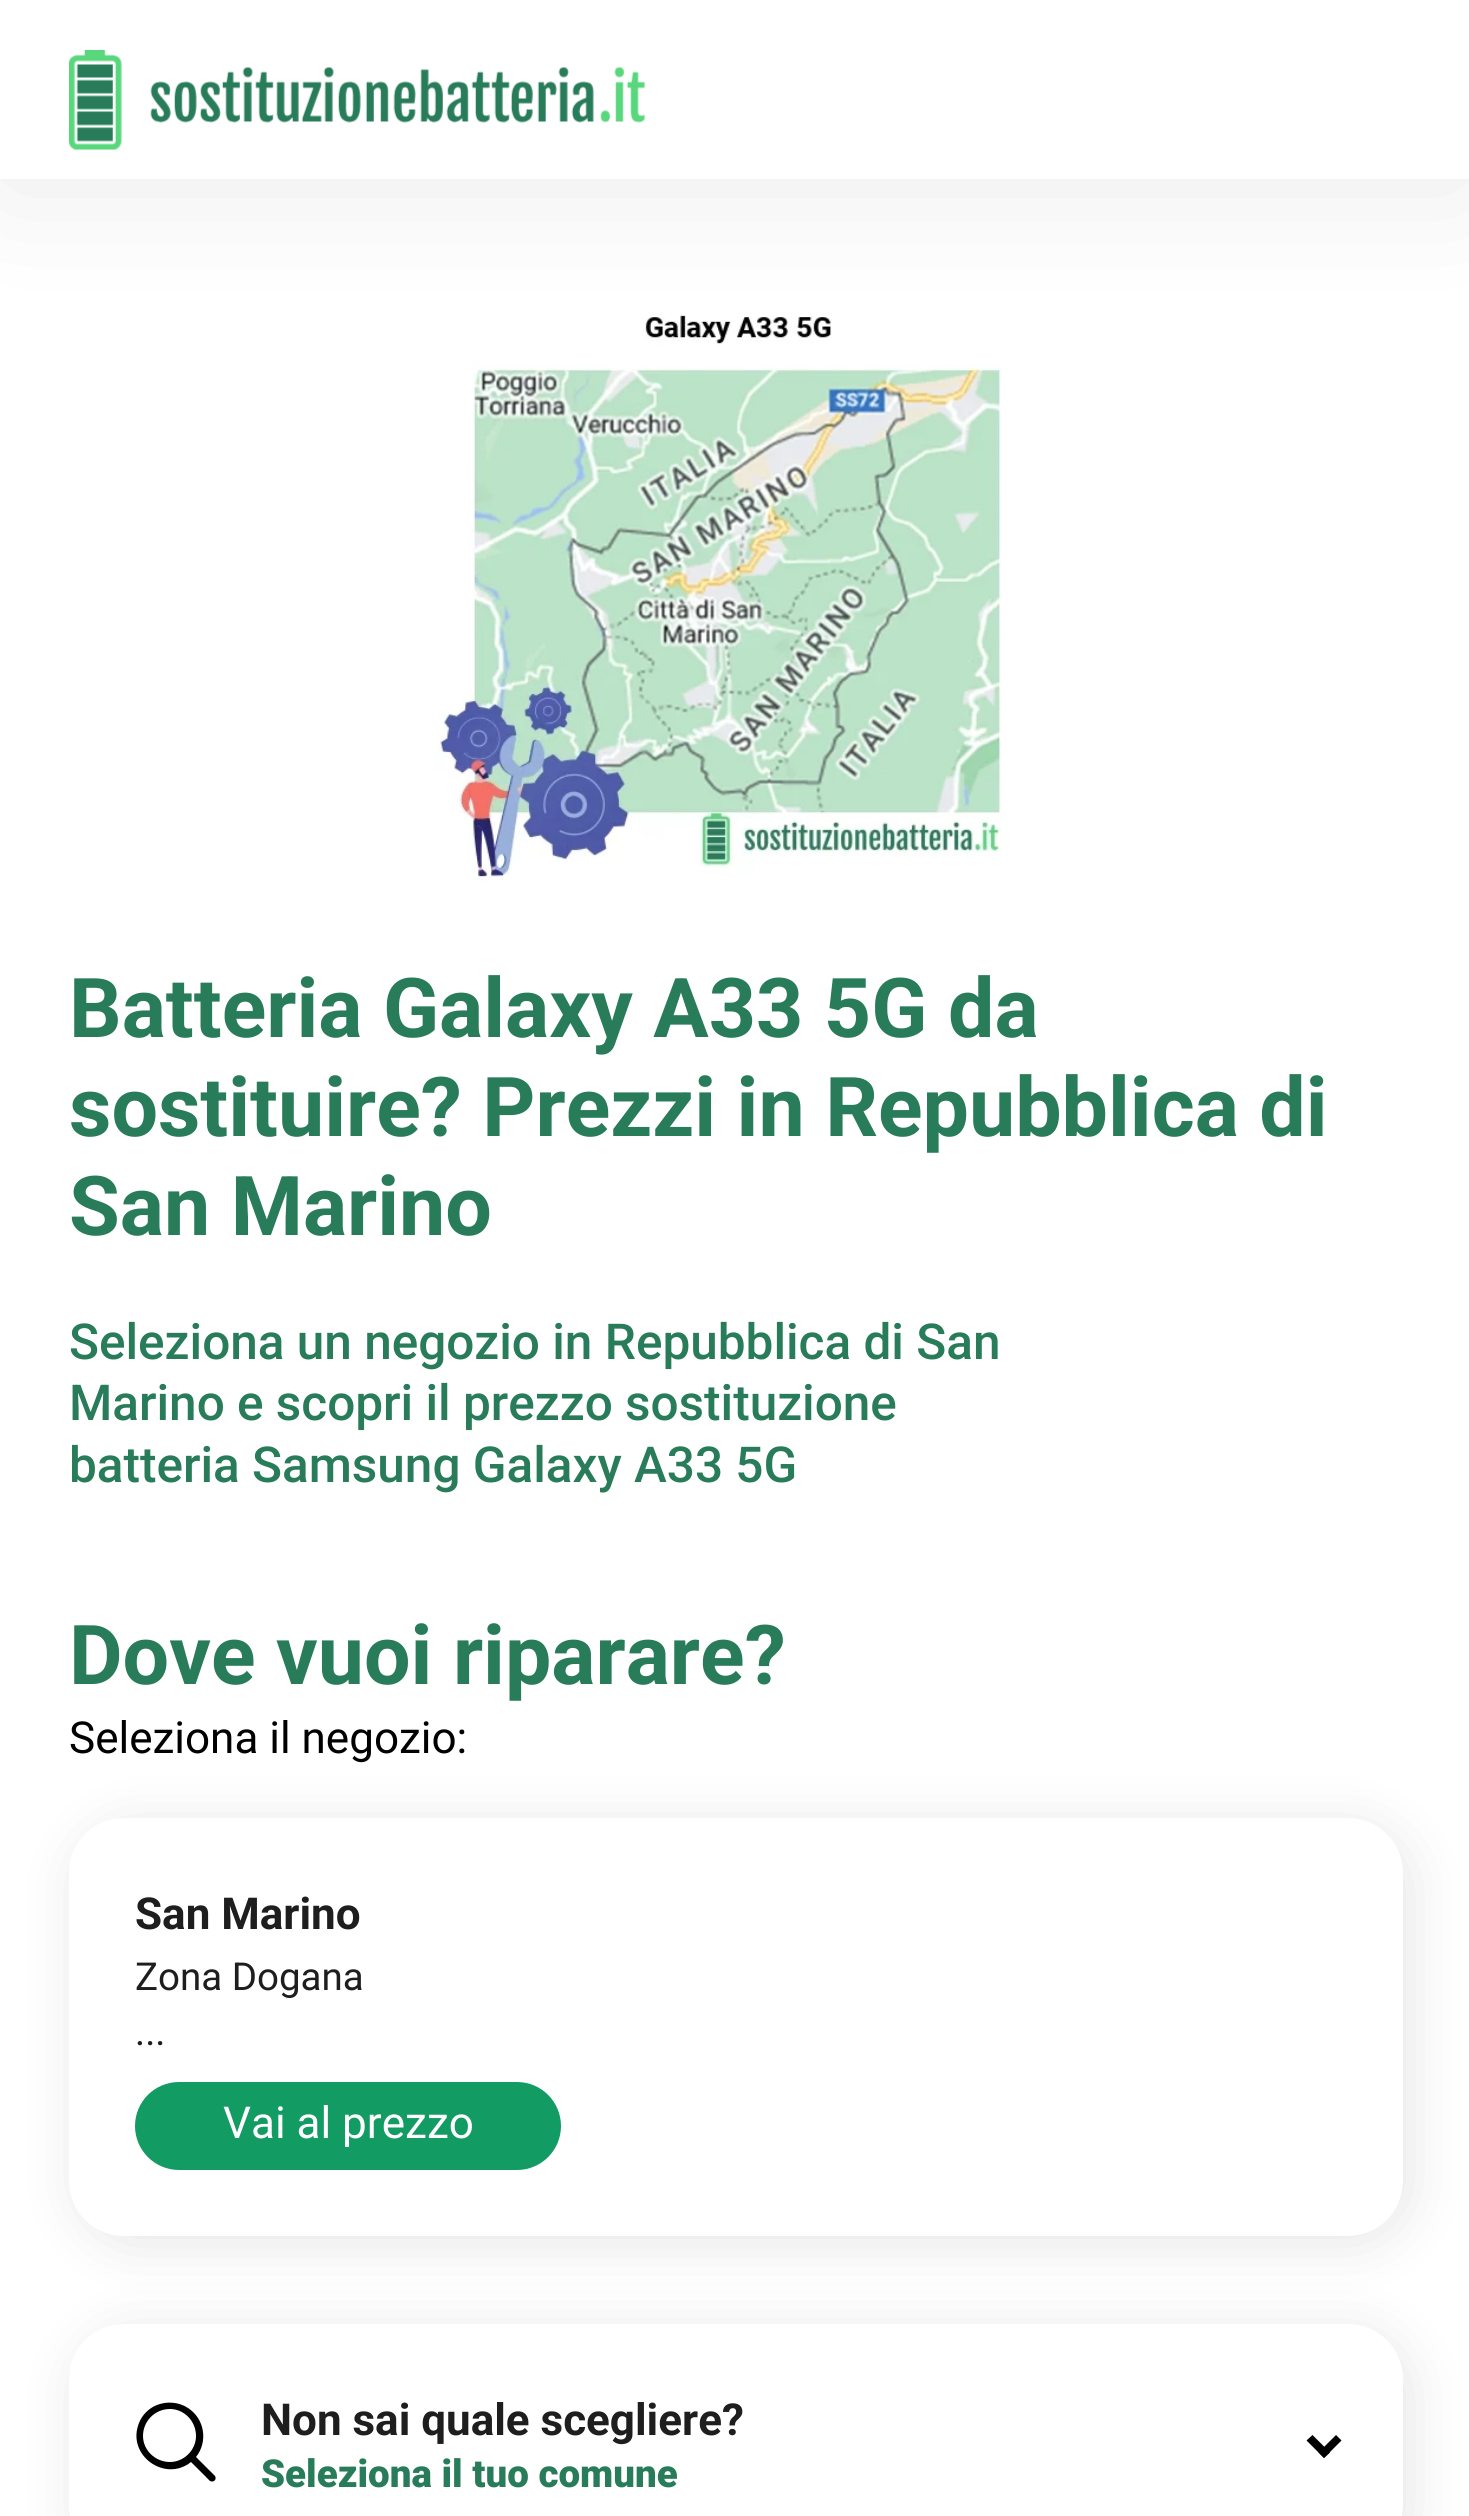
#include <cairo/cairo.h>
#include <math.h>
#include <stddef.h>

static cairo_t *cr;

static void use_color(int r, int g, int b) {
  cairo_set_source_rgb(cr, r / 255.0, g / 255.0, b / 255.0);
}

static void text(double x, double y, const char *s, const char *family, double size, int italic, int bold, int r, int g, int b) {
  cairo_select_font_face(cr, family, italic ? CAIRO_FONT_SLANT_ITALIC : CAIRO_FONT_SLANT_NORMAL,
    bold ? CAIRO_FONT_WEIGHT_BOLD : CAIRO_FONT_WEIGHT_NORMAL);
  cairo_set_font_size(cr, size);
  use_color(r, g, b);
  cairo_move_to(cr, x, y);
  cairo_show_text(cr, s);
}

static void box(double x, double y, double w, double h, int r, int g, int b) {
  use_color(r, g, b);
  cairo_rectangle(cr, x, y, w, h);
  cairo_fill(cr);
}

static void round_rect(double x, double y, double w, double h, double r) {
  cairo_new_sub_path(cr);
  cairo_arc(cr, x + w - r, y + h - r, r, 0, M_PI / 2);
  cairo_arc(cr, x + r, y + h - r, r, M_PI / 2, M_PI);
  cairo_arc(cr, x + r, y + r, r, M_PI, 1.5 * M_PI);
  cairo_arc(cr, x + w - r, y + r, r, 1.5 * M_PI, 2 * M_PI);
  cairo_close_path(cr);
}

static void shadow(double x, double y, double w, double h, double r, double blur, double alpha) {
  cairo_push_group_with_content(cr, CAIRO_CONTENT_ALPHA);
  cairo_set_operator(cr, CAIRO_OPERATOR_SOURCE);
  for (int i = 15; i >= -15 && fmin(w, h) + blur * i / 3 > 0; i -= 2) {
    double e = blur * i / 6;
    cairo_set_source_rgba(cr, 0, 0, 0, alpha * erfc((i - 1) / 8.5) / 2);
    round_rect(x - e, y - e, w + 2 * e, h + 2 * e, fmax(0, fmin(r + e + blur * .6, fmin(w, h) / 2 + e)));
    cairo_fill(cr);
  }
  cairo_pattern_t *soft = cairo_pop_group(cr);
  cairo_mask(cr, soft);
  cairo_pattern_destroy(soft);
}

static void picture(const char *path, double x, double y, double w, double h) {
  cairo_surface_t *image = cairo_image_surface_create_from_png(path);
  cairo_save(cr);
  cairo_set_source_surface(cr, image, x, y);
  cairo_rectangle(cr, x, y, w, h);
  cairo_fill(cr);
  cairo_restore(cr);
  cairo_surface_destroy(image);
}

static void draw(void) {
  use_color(255, 255, 255);
  cairo_paint(cr);
  picture("img_02.png", 434, 313, 568, 568);
  use_color(0, 0, 0);
  shadow(0, 8, 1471, 179, 0, 69, 0.08);
  box(0, 0, 1469, 179, 255, 255, 255);
  picture("img_01.png", 69, 50, 576, 101);
  use_color(0, 0, 0);
  shadow(77, 2332, 1334, 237, 55, 27.5, 0.1);
  use_color(255, 255, 255);
  round_rect(69, 2324, 1334, 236, 55);
  cairo_fill(cr);
  use_color(0, 0, 0);
  shadow(77, 1826, 1334, 418, 55, 27.5, 0.1);
  use_color(255, 255, 255);
  round_rect(69, 1818, 1334, 418, 55);
  cairo_fill(cr);
  use_color(19, 155, 100);
  round_rect(135, 2082, 426, 88, 44);
  cairo_fill(cr);
  use_color(0, 0, 0);
  cairo_new_path(cr);
  cairo_move_to(cr, 215, 2476);
  cairo_line_to(cr, 196, 2457);
  cairo_curve_to(cr, 208, 2442, 205, 2419, 188, 2408);
  cairo_curve_to(cr, 179, 2402, 167, 2401, 157, 2405);
  cairo_curve_to(cr, 149, 2408, 142, 2415, 139, 2423);
  cairo_curve_to(cr, 126, 2455, 165, 2483, 191, 2462);
  cairo_line_to(cr, 210, 2481);
  cairo_curve_to(cr, 214, 2483, 217, 2479, 215, 2476);
  cairo_close_path(cr);
  cairo_move_to(cr, 170, 2462);
  cairo_curve_to(cr, 155, 2462, 143, 2450, 143, 2436);
  cairo_curve_to(cr, 143, 2421, 155, 2409, 170, 2409);
  cairo_curve_to(cr, 184, 2409, 196, 2421, 196, 2436);
  cairo_curve_to(cr, 196, 2450, 184, 2462, 170, 2462);
  cairo_close_path(cr);
  cairo_fill(cr);
  cairo_new_path(cr);
  cairo_move_to(cr, 1336, 2435);
  cairo_line_to(cr, 1341.5, 2440.5);
  cairo_line_to(cr, 1324, 2458);
  cairo_line_to(cr, 1318.5, 2452.5);
  cairo_close_path(cr);
  cairo_fill(cr);
  cairo_new_path(cr);
  cairo_move_to(cr, 1312.5, 2435);
  cairo_line_to(cr, 1330, 2452.5);
  cairo_line_to(cr, 1324, 2458);
  cairo_line_to(cr, 1306.5, 2440.5);
  cairo_close_path(cr);
  cairo_fill(cr);
  text(69, 1037, "Batteria Galaxy A33 5G da", "Roboto", 82.5, 0, 1, 40, 124, 90);
  text(69, 1136, "sostituire? Prezzi in Repubblica di", "Roboto", 82.5, 0, 1, 40, 124, 90);
  text(69, 1235, "San Marino", "Roboto", 82.5, 0, 1, 40, 124, 90);
  text(69, 1359, "Seleziona un negozio in Repubblica di San", "Roboto Medium", 49.5, 0, 0, 40, 124, 90);
  text(69, 1420, "Marino e scopri il prezzo sostituzione", "Roboto Medium", 49.5, 0, 0, 40, 124, 90);
  text(69, 1482, "batteria Samsung Galaxy A33 5G", "Roboto Medium", 49.5, 0, 0, 40, 124, 90);
  text(69, 1684, "Dove vuoi riparare?", "Roboto", 82.5, 0, 1, 40, 124, 90);
  text(69, 1753, "Seleziona il negozio:", "Roboto", 44, 0, 0, 0, 0, 0);
  text(135, 1929, "San Marino", "Roboto", 44, 0, 1, 30, 30, 30);
  text(135, 1990, "Zona Dogana", "Roboto", 38.5, 0, 0, 30, 30, 30);
  text(135, 2045, "...", "Roboto", 38.5, 0, 0, 30, 30, 30);
  text(223, 2138, "Vai al prezzo", "Roboto", 44, 0, 0, 255, 255, 255);
  text(261, 2435, "Non sai quale scegliere?", "Roboto", 44, 0, 1, 30, 30, 30);
  text(261, 2487, "Seleziona il tuo comune", "Roboto Black", 38.5, 0, 0, 40, 124, 90);
}

int main(void) {
  cairo_surface_t *surface = cairo_image_surface_create(CAIRO_FORMAT_RGB24, 1469, 2516);
  cr = cairo_create(surface);
  cairo_font_options_t *options = cairo_font_options_create();
  cairo_font_options_set_hint_metrics(options, CAIRO_HINT_METRICS_OFF);
  cairo_font_options_set_hint_style(options, CAIRO_HINT_STYLE_NONE);
  cairo_set_font_options(cr, options);
  cairo_set_miter_limit(cr, 4);
  draw();
  cairo_surface_write_to_png(surface, "out.png");
  cairo_font_options_destroy(options);
  cairo_destroy(cr);
  cairo_surface_destroy(surface);
  return 0;
}
